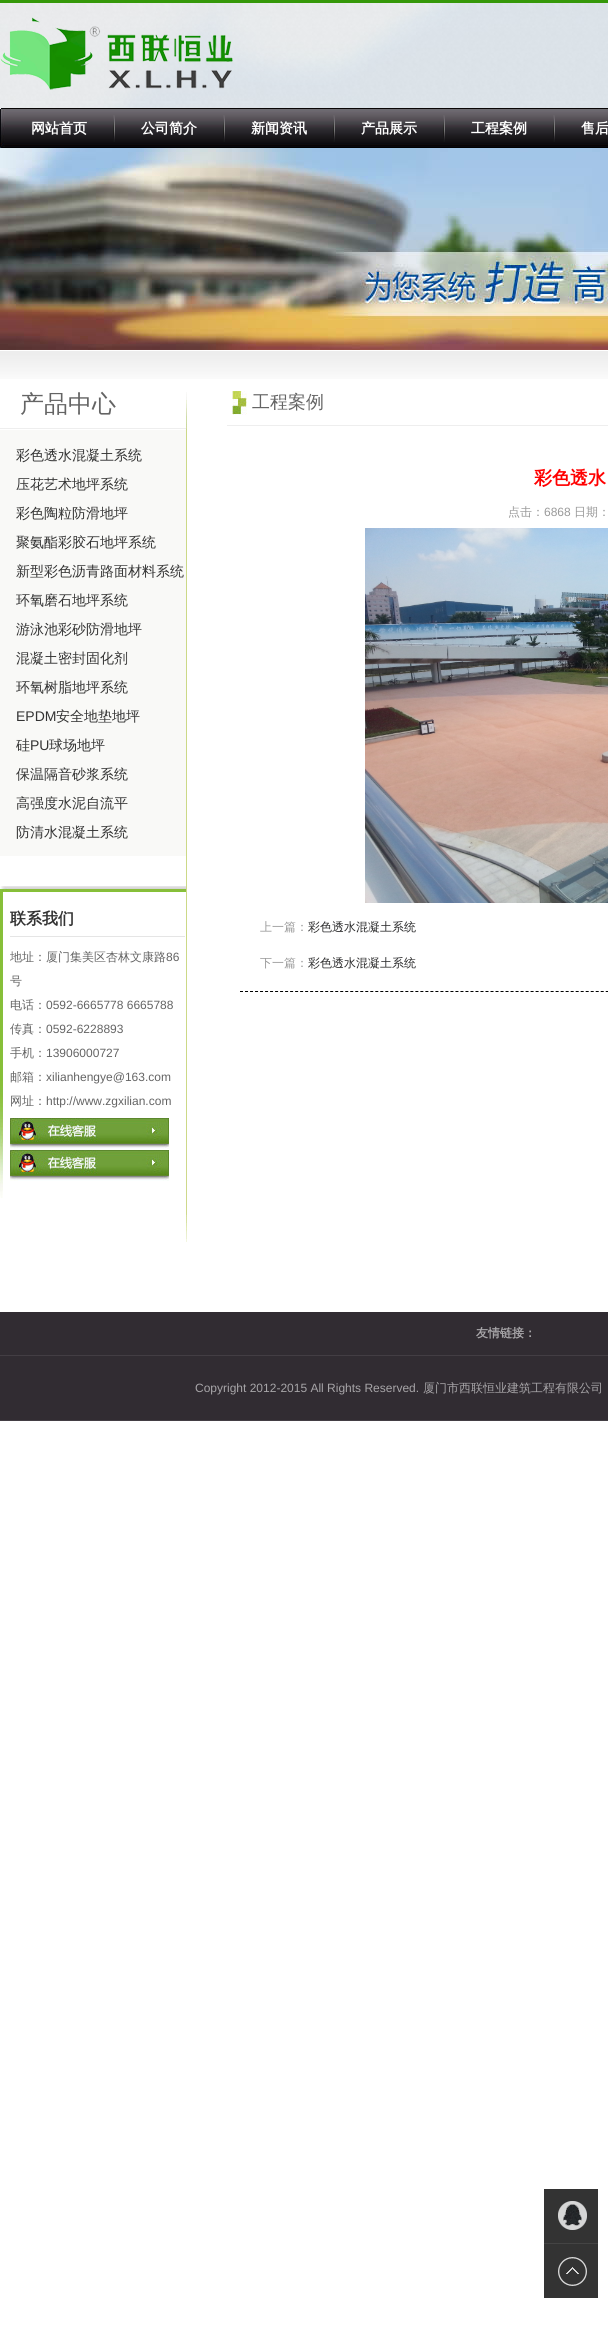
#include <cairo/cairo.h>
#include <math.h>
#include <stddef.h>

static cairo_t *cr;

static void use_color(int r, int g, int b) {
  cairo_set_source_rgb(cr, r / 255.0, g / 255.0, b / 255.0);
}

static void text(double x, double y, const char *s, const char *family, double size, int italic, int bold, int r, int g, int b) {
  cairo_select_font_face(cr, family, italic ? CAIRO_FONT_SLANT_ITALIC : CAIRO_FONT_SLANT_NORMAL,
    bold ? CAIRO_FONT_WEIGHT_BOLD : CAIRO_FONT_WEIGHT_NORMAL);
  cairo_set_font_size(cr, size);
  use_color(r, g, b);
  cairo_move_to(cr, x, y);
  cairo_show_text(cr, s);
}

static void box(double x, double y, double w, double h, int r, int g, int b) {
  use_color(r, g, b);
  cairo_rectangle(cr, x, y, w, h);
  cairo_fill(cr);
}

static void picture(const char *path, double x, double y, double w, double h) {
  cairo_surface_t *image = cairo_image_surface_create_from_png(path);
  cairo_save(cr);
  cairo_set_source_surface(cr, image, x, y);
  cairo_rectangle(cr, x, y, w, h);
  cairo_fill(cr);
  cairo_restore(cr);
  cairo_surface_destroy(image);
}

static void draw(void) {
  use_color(255, 255, 255);
  cairo_paint(cr);
  picture("img_01.png", 0, 3, 608, 347);
  picture("img_02.png", 0, 3, 608, 106);
  box(0, 0, 608, 3, 53, 152, 9);
  picture("img_03.png", 0, 17, 233, 73);
  picture("img_04.png", 0, 108, 5, 40);
  picture("img_05.png", 5, 108, 108, 40);
  picture("img_06.png", 113, 108, 110, 40);
  picture("img_07.png", 113, 115, 2, 27);
  picture("img_06.png", 223, 108, 110, 40);
  picture("img_07.png", 223, 115, 2, 27);
  picture("img_06.png", 333, 108, 110, 40);
  picture("img_07.png", 333, 115, 2, 27);
  picture("img_06.png", 443, 108, 110, 40);
  picture("img_07.png", 443, 115, 2, 27);
  picture("img_08.png", 553, 108, 55, 40);
  picture("img_07.png", 553, 115, 2, 27);
  picture("img_09.png", 0, 351, 608, 28);
  picture("img_10.png", 186, 1142, 1, 100);
  picture("img_11.png", 186, 392, 1, 38);
  box(0, 428, 186, 1, 238, 238, 238);
  box(0, 430, 186, 426, 249, 249, 247);
  box(186, 430, 1, 712, 204, 217, 135);
  picture("img_12.png", 0, 886, 186, 6);
  picture("img_13.png", 0, 892, 3, 306);
  box(10, 936, 175, 1, 229, 229, 229);
  picture("img_14.png", 10, 1118, 159, 31);
  picture("img_14.png", 10, 1150, 159, 31);
  box(227, 425, 381, 1, 238, 238, 238);
  picture("img_15.png", 232, 391, 15, 24);
  picture("img_16.png", 365, 528, 243, 375);
  cairo_new_path(cr);
  cairo_move_to(cr, 240, 991.5);
  cairo_line_to(cr, 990, 991.5);
  use_color(0, 0, 0);
  cairo_set_line_width(cr, 1);
  cairo_set_dash(cr, (double[]){3, 2.01}, 2, 0);
  cairo_stroke(cr);
  box(0, 1312, 608, 43, 49, 44, 50);
  box(0, 1355, 608, 1, 67, 62, 68);
  box(0, 1356, 608, 64, 49, 44, 50);
  box(0, 1420, 608, 1, 67, 62, 68);
  box(544, 2243, 54, 1, 68, 68, 68);
  box(544, 2189, 54, 54, 51, 51, 51);
  picture("img_17.png", 558, 2201, 29, 29);
  box(544, 2244, 54, 54, 51, 51, 51);
  picture("img_18.png", 558, 2257, 29, 29);
  text(31, 133, "网站首页", "WenQuanYi Zen Hei", 14, 0, 1, 255, 255, 255);
  text(141, 133, "公司简介", "WenQuanYi Zen Hei", 14, 0, 1, 255, 255, 255);
  text(251, 133, "新闻资讯", "WenQuanYi Zen Hei", 14, 0, 1, 255, 255, 255);
  text(361, 133, "产品展示", "WenQuanYi Zen Hei", 14, 0, 1, 255, 255, 255);
  text(471, 133, "工程案例", "WenQuanYi Zen Hei", 14, 0, 1, 255, 255, 255);
  text(581, 133, "售后", "WenQuanYi Zen Hei", 14, 0, 1, 255, 255, 255);
  text(20, 412, "产品中心", "WenQuanYi Zen Hei Medium", 24, 0, 0, 100, 100, 100);
  text(16, 460, "彩色透水混凝土系统", "WenQuanYi Zen Hei Medium", 14, 0, 0, 51, 51, 51);
  text(16, 489, "压花艺术地坪系统", "WenQuanYi Zen Hei Medium", 14, 0, 0, 51, 51, 51);
  text(16, 518, "彩色陶粒防滑地坪", "WenQuanYi Zen Hei Medium", 14, 0, 0, 51, 51, 51);
  text(16, 547, "聚氨酯彩胶石地坪系统", "WenQuanYi Zen Hei Medium", 14, 0, 0, 51, 51, 51);
  text(16, 576, "新型彩色沥青路面材料系统", "WenQuanYi Zen Hei Medium", 14, 0, 0, 51, 51, 51);
  text(16, 605, "环氧磨石地坪系统", "WenQuanYi Zen Hei Medium", 14, 0, 0, 51, 51, 51);
  text(16, 634, "游泳池彩砂防滑地坪", "WenQuanYi Zen Hei Medium", 14, 0, 0, 51, 51, 51);
  text(16, 663, "混凝土密封固化剂", "WenQuanYi Zen Hei Medium", 14, 0, 0, 51, 51, 51);
  text(16, 692, "环氧树脂地坪系统", "WenQuanYi Zen Hei Medium", 14, 0, 0, 51, 51, 51);
  text(16, 721, "EPDM", "Liberation Sans", 14, 0, 0, 51, 51, 51);
  text(56, 721, "安全地垫地坪", "WenQuanYi Zen Hei Medium", 14, 0, 0, 51, 51, 51);
  text(16, 750, "硅", "WenQuanYi Zen Hei Medium", 14, 0, 0, 51, 51, 51);
  text(30, 750, "PU", "Liberation Sans", 14, 0, 0, 51, 51, 51);
  text(49, 750, "球场地坪", "WenQuanYi Zen Hei Medium", 14, 0, 0, 51, 51, 51);
  text(16, 779, "保温隔音砂浆系统", "WenQuanYi Zen Hei Medium", 14, 0, 0, 51, 51, 51);
  text(16, 808, "高强度水泥自流平", "WenQuanYi Zen Hei Medium", 14, 0, 0, 51, 51, 51);
  text(16, 837, "防清水混凝土系统", "WenQuanYi Zen Hei Medium", 14, 0, 0, 51, 51, 51);
  text(10, 924, "联系我们", "WenQuanYi Zen Hei", 16, 0, 1, 51, 51, 51);
  text(10, 961, "地址：厦门集美区杏林文康路", "WenQuanYi Zen Hei Medium", 12, 0, 0, 100, 100, 100);
  text(166, 961, "86", "Liberation Sans", 12, 0, 0, 100, 100, 100);
  text(10, 985, "号", "WenQuanYi Zen Hei Medium", 12, 0, 0, 100, 100, 100);
  text(10, 1009, "电话：", "WenQuanYi Zen Hei Medium", 12, 0, 0, 100, 100, 100);
  text(46, 1009, "0592-6665778 6665788", "Liberation Sans", 12, 0, 0, 100, 100, 100);
  text(10, 1033, "传真：", "WenQuanYi Zen Hei Medium", 12, 0, 0, 100, 100, 100);
  text(46, 1033, "0592-6228893", "Liberation Sans", 12, 0, 0, 100, 100, 100);
  text(10, 1057, "手机：", "WenQuanYi Zen Hei Medium", 12, 0, 0, 100, 100, 100);
  text(46, 1057, "13906000727", "Liberation Sans", 12, 0, 0, 100, 100, 100);
  text(10, 1081, "邮箱：", "WenQuanYi Zen Hei Medium", 12, 0, 0, 100, 100, 100);
  text(46, 1081, "xilianhengye@163.com", "Liberation Sans", 12, 0, 0, 100, 100, 100);
  text(10, 1105, "网址：", "WenQuanYi Zen Hei Medium", 12, 0, 0, 100, 100, 100);
  text(46, 1105, "http://www.zgxilian.com", "Liberation Sans", 12, 0, 0, 100, 100, 100);
  text(252, 408, "工程案例", "WenQuanYi Zen Hei Medium", 18, 0, 0, 100, 100, 100);
  text(534, 484, "彩色透水", "WenQuanYi Zen Hei", 18, 0, 1, 255, 0, 0);
  text(508, 516, "点击：", "WenQuanYi Zen Hei Medium", 12, 0, 0, 153, 153, 153);
  text(544, 516, "6868", "Liberation Sans", 12, 0, 0, 153, 153, 153);
  text(574, 516, "日期：", "WenQuanYi Zen Hei Medium", 12, 0, 0, 153, 153, 153);
  text(260, 931, "上一篇：", "WenQuanYi Zen Hei Medium", 12, 0, 0, 153, 153, 153);
  text(308, 931, "彩色透水混凝土系统", "WenQuanYi Zen Hei Medium", 12, 0, 0, 45, 45, 46);
  text(260, 967, "下一篇：", "WenQuanYi Zen Hei Medium", 12, 0, 0, 153, 153, 153);
  text(308, 967, "彩色透水混凝土系统", "WenQuanYi Zen Hei Medium", 12, 0, 0, 45, 45, 46);
  text(476, 1337, "友情链接：", "WenQuanYi Zen Hei", 12, 0, 1, 167, 165, 168);
  text(195, 1392, "Copyright 2012-2015 All Rights Reserved.", "Liberation Sans", 12, 0, 0, 167, 165, 168);
  text(423, 1392, "厦门市西联恒业建筑工程有限公司", "WenQuanYi Zen Hei Medium", 12, 0, 0, 167, 165, 168);
}

int main(void) {
  cairo_surface_t *surface = cairo_image_surface_create(CAIRO_FORMAT_RGB24, 608, 2339);
  cr = cairo_create(surface);
  cairo_font_options_t *options = cairo_font_options_create();
  cairo_font_options_set_hint_metrics(options, CAIRO_HINT_METRICS_OFF);
  cairo_font_options_set_hint_style(options, CAIRO_HINT_STYLE_NONE);
  cairo_set_font_options(cr, options);
  cairo_set_miter_limit(cr, 4);
  draw();
  cairo_surface_write_to_png(surface, "out.png");
  cairo_font_options_destroy(options);
  cairo_destroy(cr);
  cairo_surface_destroy(surface);
  return 0;
}
